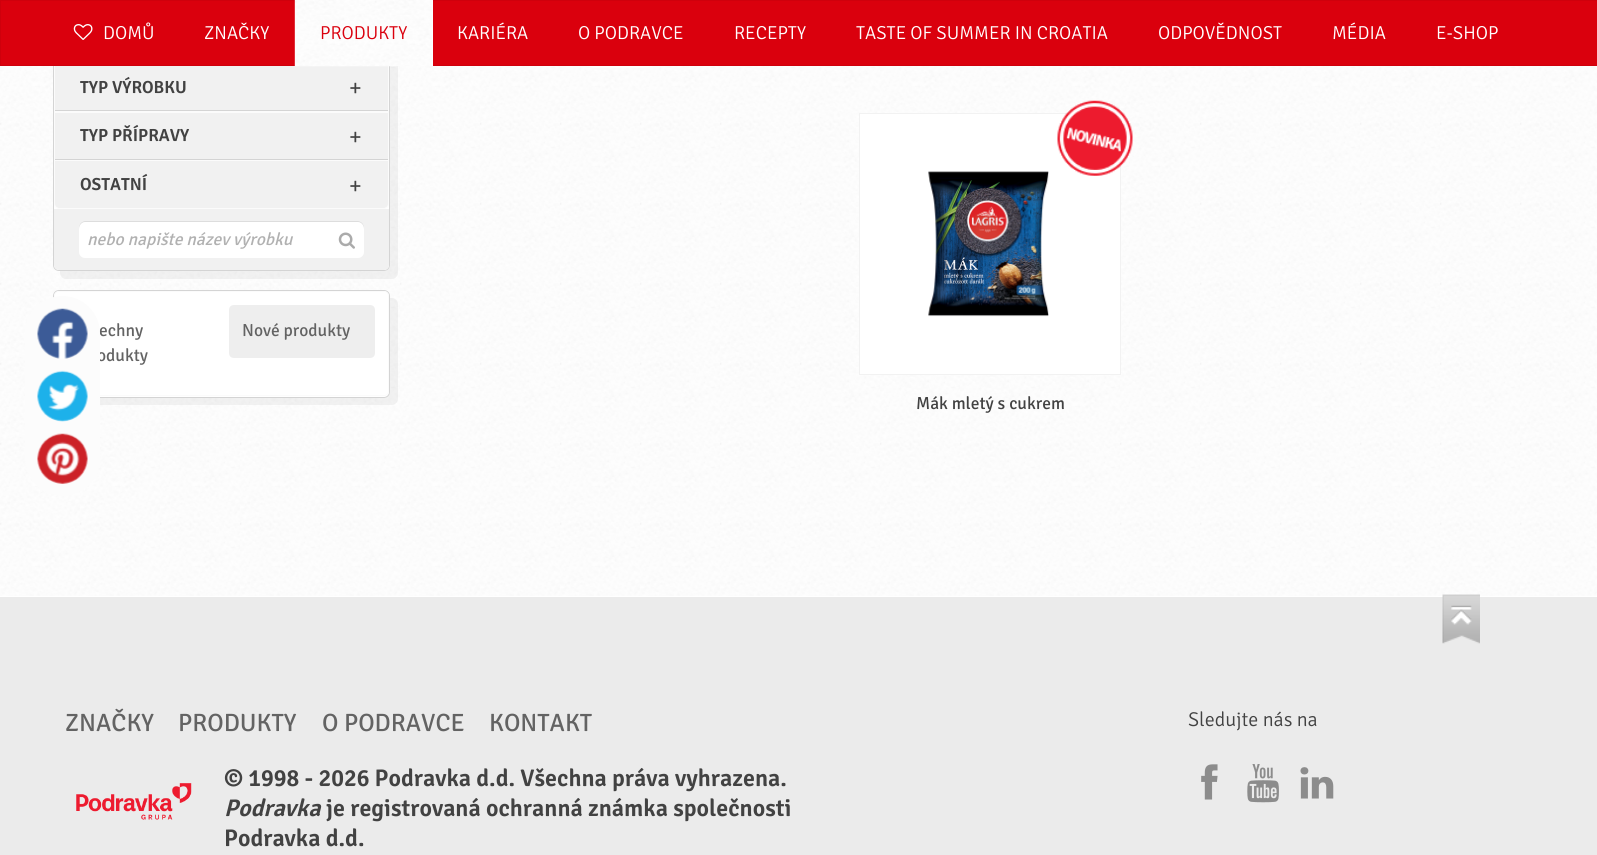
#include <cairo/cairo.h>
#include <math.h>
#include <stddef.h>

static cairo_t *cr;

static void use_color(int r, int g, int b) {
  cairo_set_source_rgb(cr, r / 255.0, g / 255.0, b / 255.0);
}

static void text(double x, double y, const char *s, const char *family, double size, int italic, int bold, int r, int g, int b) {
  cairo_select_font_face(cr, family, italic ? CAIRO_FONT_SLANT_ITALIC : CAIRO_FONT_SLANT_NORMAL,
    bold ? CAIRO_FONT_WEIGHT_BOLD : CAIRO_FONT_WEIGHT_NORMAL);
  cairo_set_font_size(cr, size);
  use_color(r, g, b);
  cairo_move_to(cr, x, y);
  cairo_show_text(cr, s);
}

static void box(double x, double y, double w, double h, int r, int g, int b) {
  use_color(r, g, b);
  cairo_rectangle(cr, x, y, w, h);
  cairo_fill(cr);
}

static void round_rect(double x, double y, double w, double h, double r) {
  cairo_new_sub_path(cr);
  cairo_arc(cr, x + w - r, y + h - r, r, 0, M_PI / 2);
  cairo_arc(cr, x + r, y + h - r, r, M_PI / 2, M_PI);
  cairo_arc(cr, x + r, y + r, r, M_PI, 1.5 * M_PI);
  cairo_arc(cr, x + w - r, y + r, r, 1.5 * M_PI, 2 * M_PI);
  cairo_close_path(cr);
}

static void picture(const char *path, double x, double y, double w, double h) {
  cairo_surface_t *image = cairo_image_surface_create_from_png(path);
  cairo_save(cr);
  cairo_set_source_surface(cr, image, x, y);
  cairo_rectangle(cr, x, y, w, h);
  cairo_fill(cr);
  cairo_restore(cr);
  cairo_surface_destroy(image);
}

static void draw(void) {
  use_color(255, 255, 255);
  cairo_paint(cr);
  picture("img_01.png", 0, 66, 1597, 530);
  cairo_set_source_rgba(cr, 0, 0, 0, 0.05);
  cairo_new_path(cr);
  cairo_move_to(cr, 60, 271);
  cairo_line_to(cr, 60, 273);
  cairo_curve_to(cr, 60, 276, 63, 279, 66, 279);
  cairo_line_to(cr, 392, 279);
  cairo_curve_to(cr, 395, 279, 398, 276, 398, 273);
  cairo_line_to(cr, 398, -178);
  cairo_curve_to(cr, 398, -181, 395, -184, 392, -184);
  cairo_line_to(cr, 390, -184);
  cairo_line_to(cr, 390, 265);
  cairo_curve_to(cr, 390, 268, 387, 271, 384, 271);
  cairo_close_path(cr);
  cairo_fill(cr);
  use_color(255, 255, 255);
  round_rect(53.5, -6.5, 336, 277, 5.5);
  cairo_fill_preserve(cr);
  use_color(212, 212, 212);
  cairo_set_line_width(cr, 1);
  cairo_stroke(cr);
  round_rect(54.5, -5.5, 334, 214, 4.5);
  use_color(251, 251, 251);
  cairo_stroke(cr);
  use_color(218, 0, 13);
  cairo_rectangle(cr, 0.5, 0.5, 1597, 65);
  cairo_fill_preserve(cr);
  use_color(207, 0, 12);
  cairo_stroke(cr);
  picture("img_02.png", 73, 24, 20, 16);
  box(295, 0, 138, 66, 255, 255, 255);
  box(55, 66, 333, 44, 241, 241, 241);
  picture("img_03.png", 294, 0, 138, 67);
  cairo_save(cr);
  cairo_rectangle(cr, 55, 111, 333, 48);
  cairo_clip(cr);
  use_color(251, 251, 251);
  cairo_set_fill_rule(cr, CAIRO_FILL_RULE_EVEN_ODD);
  cairo_new_path(cr);
  cairo_move_to(cr, 388, -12);
  cairo_line_to(cr, 388, 204);
  cairo_curve_to(cr, 388, 206, 386, 208, 384, 208);
  cairo_line_to(cr, 59, 208);
  cairo_curve_to(cr, 57, 208, 55, 206, 55, 204);
  cairo_line_to(cr, 55, -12);
  cairo_close_path(cr);
  cairo_move_to(cr, 56, 114);
  cairo_line_to(cr, 386, 114);
  cairo_line_to(cr, 386, 159);
  cairo_line_to(cr, 56, 159);
  cairo_close_path(cr);
  cairo_fill(cr);
  cairo_restore(cr);
  box(55, 110, 333, 1, 212, 212, 212);
  box(55, 113, 333, 46, 241, 241, 241);
  cairo_save(cr);
  cairo_rectangle(cr, 55, 160, 333, 48);
  cairo_clip(cr);
  use_color(251, 251, 251);
  cairo_new_path(cr);
  cairo_move_to(cr, 56, 162);
  cairo_line_to(cr, 386, 162);
  cairo_line_to(cr, 386, 207);
  cairo_curve_to(cr, 387, 207, 388, 205, 388, 204);
  cairo_line_to(cr, 388, 36);
  cairo_line_to(cr, 55, 36);
  cairo_line_to(cr, 55, 204);
  cairo_line_to(cr, 56, 207);
  cairo_close_path(cr);
  cairo_fill(cr);
  cairo_restore(cr);
  box(55, 159, 333, 1, 212, 212, 212);
  use_color(241, 241, 241);
  cairo_new_path(cr);
  cairo_move_to(cr, 55, 161);
  cairo_line_to(cr, 388, 161);
  cairo_line_to(cr, 388, 204);
  cairo_curve_to(cr, 388, 206, 386, 208, 384, 208);
  cairo_line_to(cr, 59, 208);
  cairo_curve_to(cr, 57, 208, 55, 206, 55, 204);
  cairo_close_path(cr);
  cairo_fill(cr);
  cairo_new_path(cr);
  cairo_move_to(cr, 54, 209);
  cairo_line_to(cr, 389, 209);
  cairo_line_to(cr, 389, 265);
  cairo_curve_to(cr, 389, 268, 387, 270, 384, 270);
  cairo_line_to(cr, 59, 270);
  cairo_curve_to(cr, 56, 270, 54, 268, 54, 265);
  cairo_close_path(cr);
  cairo_fill(cr);
  use_color(255, 255, 255);
  round_rect(79, 221, 285, 37, 6);
  cairo_fill(cr);
  use_color(221, 221, 221);
  cairo_new_path(cr);
  cairo_move_to(cr, 85, 222);
  cairo_line_to(cr, 358, 222);
  cairo_curve_to(cr, 361, 222, 364, 225, 364, 229);
  cairo_line_to(cr, 364, 227);
  cairo_curve_to(cr, 364, 224, 361, 221, 358, 221);
  cairo_line_to(cr, 85, 221);
  cairo_curve_to(cr, 82, 221, 79, 224, 79, 227);
  cairo_line_to(cr, 79, 229);
  cairo_curve_to(cr, 79, 225, 82, 222, 85, 222);
  cairo_close_path(cr);
  cairo_fill(cr);
  picture("img_07.png", 338, 232, 17, 17);
  cairo_set_source_rgba(cr, 0, 0, 0, 0.05);
  cairo_new_path(cr);
  cairo_move_to(cr, 60, 398);
  cairo_line_to(cr, 60, 399);
  cairo_curve_to(cr, 60, 402, 63, 405, 66, 405);
  cairo_line_to(cr, 392, 405);
  cairo_curve_to(cr, 395, 405, 398, 402, 398, 399);
  cairo_line_to(cr, 398, 304);
  cairo_curve_to(cr, 398, 301, 395, 298, 392, 298);
  cairo_line_to(cr, 390, 298);
  cairo_line_to(cr, 390, 391);
  cairo_curve_to(cr, 390, 395, 387, 398, 384, 398);
  cairo_close_path(cr);
  cairo_fill(cr);
  use_color(255, 255, 255);
  round_rect(53.5, 290.5, 336, 107, 5.5);
  cairo_fill_preserve(cr);
  use_color(212, 212, 212);
  cairo_stroke(cr);
  round_rect(54.5, 291.5, 334, 104, 4.5);
  use_color(251, 251, 251);
  cairo_stroke(cr);
  use_color(238, 238, 238);
  cairo_new_path(cr);
  cairo_move_to(cr, 234, 305);
  cairo_line_to(cr, 370, 305);
  cairo_curve_to(cr, 373, 305, 375, 307, 375, 310);
  cairo_line_to(cr, 375, 353);
  cairo_curve_to(cr, 375, 356, 373, 358, 370, 358);
  cairo_line_to(cr, 234, 358);
  cairo_curve_to(cr, 231, 358, 229, 356, 229, 353);
  cairo_line_to(cr, 229, 310);
  cairo_curve_to(cr, 229, 307, 231, 305, 234, 305);
  cairo_close_path(cr);
  cairo_fill(cr);
  picture("img_08.png", 584, 66, 69, 2);
  use_color(255, 255, 255);
  cairo_rectangle(cr, 859.5, 113.5, 261, 261);
  cairo_fill_preserve(cr);
  use_color(242, 242, 242);
  cairo_stroke(cr);
  picture("img_09.png", 1057, 100, 76, 76);
  picture("img_10.png", 928, 171, 121, 146);
  box(0, 597, 1597, 258, 235, 235, 235);
  box(1443, 595, 37, 2, 235, 235, 235);
  picture("img_11.png", 1442, 594, 38, 50);
  picture("img_12.png", 76, 783, 116, 37);
  picture("img_13.png", 1201, 764, 17, 36);
  picture("img_14.png", 1247, 764, 32, 39);
  picture("img_15.png", 1300, 767, 34, 32);
  text(103, 39, "DOMŮ", "Signika Light", 18.75, 0, 0, 255, 255, 255);
  text(204, 39, "ZNAČKY", "Signika Light", 18.75, 0, 0, 255, 255, 255);
  text(320, 39, "PRODUKTY", "Signika Light", 18.75, 0, 0, 218, 0, 13);
  text(457, 39, "KARIÉRA", "Signika Light", 18.75, 0, 0, 255, 255, 255);
  text(578, 39, "O PODRAVCE", "Signika Light", 18.75, 0, 0, 255, 255, 255);
  text(734, 39, "RECEPTY", "Signika Light", 18.75, 0, 0, 255, 255, 255);
  text(856, 39, "TASTE OF SUMMER IN CROATIA", "Signika Light", 18.75, 0, 0, 255, 255, 255);
  text(1158, 39, "ODPOVĚDNOST", "Signika Light", 18.75, 0, 0, 255, 255, 255);
  text(1332, 39, "MÉDIA", "Signika Light", 18.75, 0, 0, 255, 255, 255);
  text(1436, 39, "E-SHOP", "Signika Light", 18.75, 0, 0, 255, 255, 255);
  text(80, 93, "TYP VÝROBKU", "Signika SemiBold", 17.5, 0, 0, 66, 66, 66);
  text(349, 95, "+", "Signika Light", 24, 0, 0, 66, 66, 66);
  text(80, 141, "TYP PŘÍPRAVY", "Signika SemiBold", 17.5, 0, 0, 66, 66, 66);
  text(349, 144, "+", "Signika Light", 24, 0, 0, 66, 66, 66);
  text(80, 190, "OSTATNÍ", "Signika SemiBold", 17.5, 0, 0, 66, 66, 66);
  text(349, 193, "+", "Signika Light", 24, 0, 0, 66, 66, 66);
  text(87, 245, "nebo napište název výrobku", "Signika", 17.5, 1, 0, 177, 177, 177);
  text(99, 336, "echny", "Signika", 17.5, 0, 0, 99, 99, 99);
  text(97, 361, "odukty", "Signika", 17.5, 0, 0, 99, 99, 99);
  use_color(252, 252, 252);
  round_rect(25, 296, 75, 200, 37.5);
  cairo_fill(cr);
  picture("img_06.png", 37, 433, 51, 51);
  picture("img_05.png", 37, 370, 51, 52);
  picture("img_04.png", 37, 308, 51, 51);
  text(242, 336, "Nové produkty", "Signika", 17.5, 0, 0, 99, 99, 99);
  text(916, 409, "Mák mletý s cukrem", "Signika", 17.5, 0, 0, 66, 66, 66);
  text(65, 731, "ZNAČKY", "Signika", 25, 0, 0, 99, 99, 99);
  text(178, 731, "PRODUKTY", "Signika", 25, 0, 0, 99, 99, 99);
  text(322, 731, "O PODRAVCE", "Signika", 25, 0, 0, 99, 99, 99);
  text(489, 731, "KONTAKT", "Signika", 25, 0, 0, 99, 99, 99);
  text(224, 786, "© 1998 - 2026 Podravka d.d. Všechna práva vyhrazena.", "Signika SemiBold", 24, 0, 0, 66, 66, 66);
  text(224, 816, "Podravka", "Signika SemiBold", 24, 1, 0, 66, 66, 66);
  text(326, 816, "je registrovaná ochranná známka společnosti", "Signika SemiBold", 24, 0, 0, 66, 66, 66);
  text(224, 846, "Podravka d.d.", "Signika SemiBold", 24, 0, 0, 66, 66, 66);
  text(1188, 726, "Sledujte nás na", "Signika Light", 20, 0, 0, 66, 66, 66);
}

int main(void) {
  cairo_surface_t *surface = cairo_image_surface_create(CAIRO_FORMAT_RGB24, 1597, 855);
  cr = cairo_create(surface);
  cairo_font_options_t *options = cairo_font_options_create();
  cairo_font_options_set_hint_metrics(options, CAIRO_HINT_METRICS_OFF);
  cairo_font_options_set_hint_style(options, CAIRO_HINT_STYLE_NONE);
  cairo_set_font_options(cr, options);
  cairo_set_miter_limit(cr, 4);
  draw();
  cairo_surface_write_to_png(surface, "out.png");
  cairo_font_options_destroy(options);
  cairo_destroy(cr);
  cairo_surface_destroy(surface);
  return 0;
}
